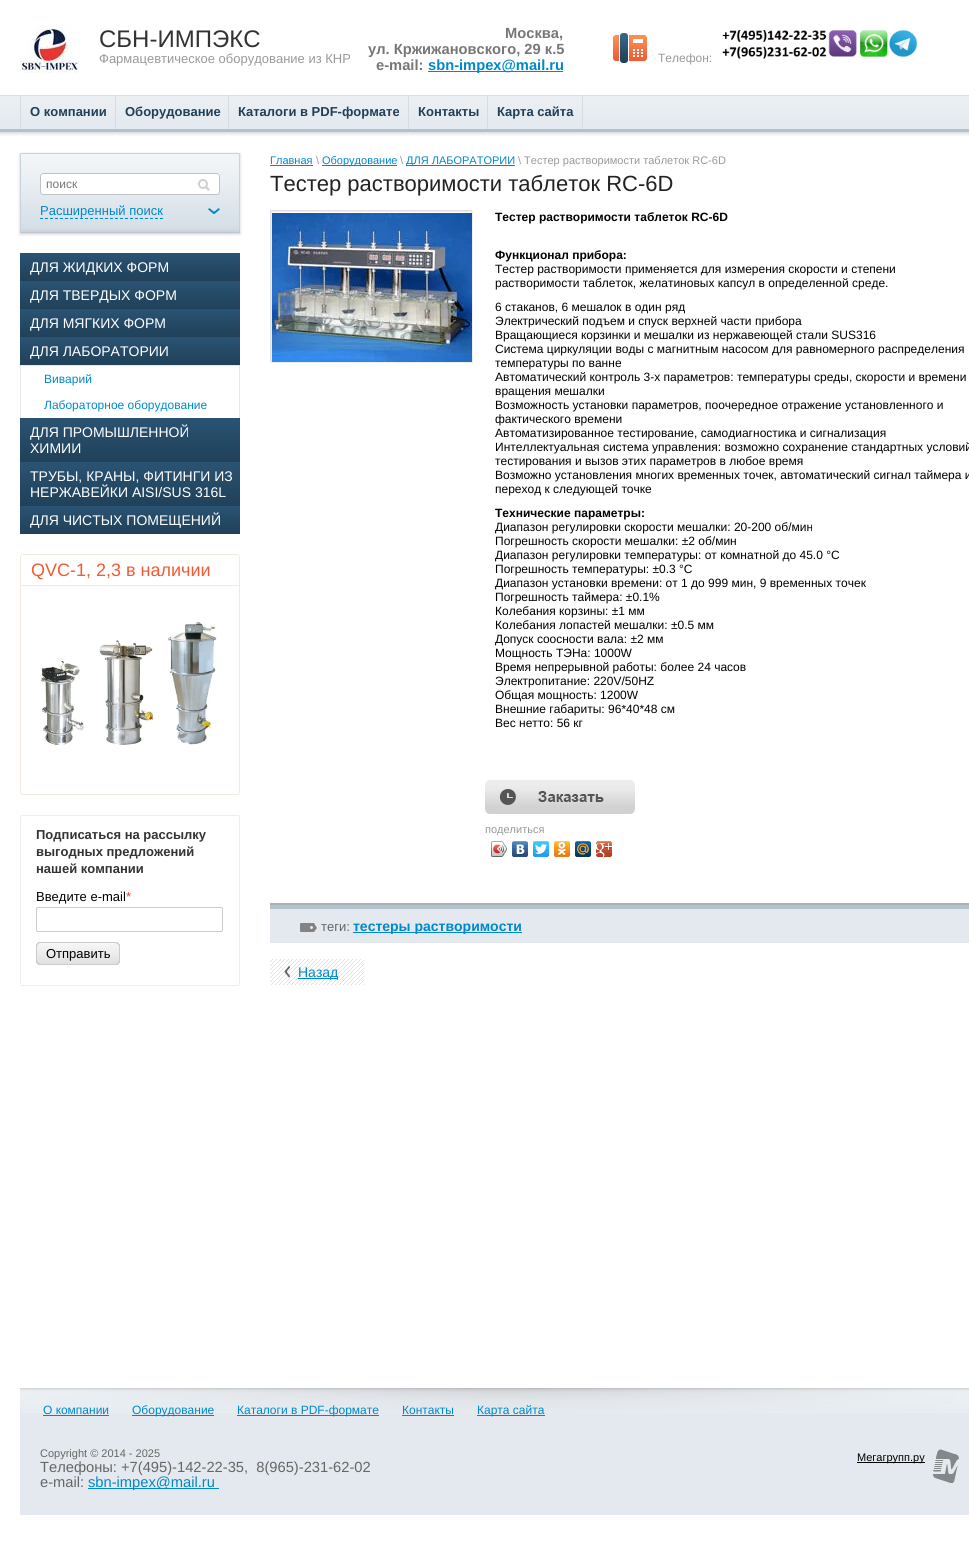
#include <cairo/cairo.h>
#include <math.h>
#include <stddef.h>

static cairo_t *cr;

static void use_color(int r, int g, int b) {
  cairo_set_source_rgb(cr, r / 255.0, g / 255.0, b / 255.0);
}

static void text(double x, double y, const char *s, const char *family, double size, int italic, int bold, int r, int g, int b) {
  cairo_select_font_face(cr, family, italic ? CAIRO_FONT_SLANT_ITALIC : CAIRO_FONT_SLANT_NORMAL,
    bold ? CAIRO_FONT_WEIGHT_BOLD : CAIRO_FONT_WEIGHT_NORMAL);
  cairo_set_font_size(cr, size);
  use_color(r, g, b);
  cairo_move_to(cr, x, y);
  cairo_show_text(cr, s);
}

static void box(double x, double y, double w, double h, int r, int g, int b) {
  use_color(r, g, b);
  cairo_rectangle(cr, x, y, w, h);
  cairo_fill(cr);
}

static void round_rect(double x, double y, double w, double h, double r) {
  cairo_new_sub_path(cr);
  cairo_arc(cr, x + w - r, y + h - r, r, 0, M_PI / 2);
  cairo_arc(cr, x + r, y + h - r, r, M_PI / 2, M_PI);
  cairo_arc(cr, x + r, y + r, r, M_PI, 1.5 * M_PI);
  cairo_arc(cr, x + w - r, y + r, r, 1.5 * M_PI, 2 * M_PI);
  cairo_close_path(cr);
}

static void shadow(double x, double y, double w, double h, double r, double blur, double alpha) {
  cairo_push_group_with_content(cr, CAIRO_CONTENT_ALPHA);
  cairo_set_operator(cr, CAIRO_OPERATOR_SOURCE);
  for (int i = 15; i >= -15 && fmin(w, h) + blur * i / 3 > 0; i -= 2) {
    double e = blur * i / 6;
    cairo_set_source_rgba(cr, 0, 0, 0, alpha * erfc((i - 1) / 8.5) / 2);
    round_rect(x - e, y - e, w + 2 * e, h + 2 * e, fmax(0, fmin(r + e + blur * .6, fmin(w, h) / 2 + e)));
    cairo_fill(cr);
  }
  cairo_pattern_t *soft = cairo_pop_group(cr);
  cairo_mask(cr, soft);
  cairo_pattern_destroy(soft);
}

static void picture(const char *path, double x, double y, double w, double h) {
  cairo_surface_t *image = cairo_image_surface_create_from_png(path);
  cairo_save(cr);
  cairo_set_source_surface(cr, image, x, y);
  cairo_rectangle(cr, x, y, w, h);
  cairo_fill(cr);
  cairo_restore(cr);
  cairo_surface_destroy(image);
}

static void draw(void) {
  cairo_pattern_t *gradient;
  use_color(255, 255, 255);
  cairo_paint(cr);
  picture("img_01.png", 20, 25, 60, 48);
  box(428, 71, 135, 1, 0, 136, 204);
  picture("img_02.png", 613, 33, 34, 30);
  picture("img_03.png", 722, 30, 195, 29);
  picture("img_04.png", 0, 95, 969, 41);
  box(20, 95, 1, 34, 213, 220, 226);
  box(115, 95, 1, 34, 213, 220, 226);
  box(228, 95, 1, 34, 213, 220, 226);
  box(408, 95, 1, 34, 213, 220, 226);
  box(582, 95, 1, 34, 213, 220, 226);
  box(487, 95, 1, 34, 213, 220, 226);
  use_color(0, 0, 0);
  shadow(20, 154, 220, 80, 0, 1.5, 0.2);
  picture("img_05.png", 20, 153, 220, 80);
  box(40, 173, 180, 20, 253, 253, 253);
  use_color(255, 255, 255);
  round_rect(40.5, 173.5, 179, 21, 2.5);
  cairo_fill_preserve(cr);
  use_color(191, 195, 197);
  cairo_set_line_width(cr, 1);
  cairo_stroke(cr);
  picture("img_06.png", 198, 179, 12, 12);
  picture("img_07.png", 208, 208, 12, 6);
  cairo_new_path(cr);
  cairo_move_to(cr, 40, 218.5);
  cairo_line_to(cr, 163, 218.5);
  use_color(0, 136, 204);
  cairo_set_dash(cr, (double[]){3, 2}, 2, 0);
  cairo_stroke(cr);
  gradient = cairo_pattern_create_linear(130, 253, 130, 281);
  cairo_pattern_add_color_stop_rgba(gradient, 0, 0.165, 0.325, 0.451, 1);
  cairo_pattern_add_color_stop_rgba(gradient, 1, 0.125, 0.255, 0.349, 1);
  cairo_set_source(cr, gradient);
  cairo_pattern_destroy(gradient);
  cairo_rectangle(cr, 20, 253, 220, 28);
  cairo_fill(cr);
  gradient = cairo_pattern_create_linear(130, 281, 130, 309);
  cairo_pattern_add_color_stop_rgba(gradient, 0, 0.165, 0.325, 0.451, 1);
  cairo_pattern_add_color_stop_rgba(gradient, 1, 0.125, 0.255, 0.349, 1);
  cairo_set_source(cr, gradient);
  cairo_pattern_destroy(gradient);
  cairo_rectangle(cr, 20, 281, 220, 28);
  cairo_fill(cr);
  gradient = cairo_pattern_create_linear(130, 309, 130, 337);
  cairo_pattern_add_color_stop_rgba(gradient, 0, 0.165, 0.325, 0.451, 1);
  cairo_pattern_add_color_stop_rgba(gradient, 1, 0.125, 0.255, 0.349, 1);
  cairo_set_source(cr, gradient);
  cairo_pattern_destroy(gradient);
  cairo_rectangle(cr, 20, 309, 220, 28);
  cairo_fill(cr);
  gradient = cairo_pattern_create_linear(130, 337, 130, 365);
  cairo_pattern_add_color_stop_rgba(gradient, 0, 0.165, 0.325, 0.451, 1);
  cairo_pattern_add_color_stop_rgba(gradient, 1, 0.125, 0.255, 0.349, 1);
  cairo_set_source(cr, gradient);
  cairo_pattern_destroy(gradient);
  cairo_rectangle(cr, 20, 337, 220, 28);
  cairo_fill(cr);
  box(20, 365, 220, 1, 227, 233, 238);
  box(239, 365, 1, 53, 227, 233, 238);
  box(20, 365, 1, 53, 227, 233, 238);
  gradient = cairo_pattern_create_linear(130, 418, 130, 462);
  cairo_pattern_add_color_stop_rgba(gradient, 0, 0.165, 0.325, 0.451, 1);
  cairo_pattern_add_color_stop_rgba(gradient, 1, 0.125, 0.255, 0.349, 1);
  cairo_set_source(cr, gradient);
  cairo_pattern_destroy(gradient);
  cairo_rectangle(cr, 20, 418, 220, 44);
  cairo_fill(cr);
  gradient = cairo_pattern_create_linear(130, 462, 130, 506);
  cairo_pattern_add_color_stop_rgba(gradient, 0, 0.165, 0.325, 0.451, 1);
  cairo_pattern_add_color_stop_rgba(gradient, 1, 0.125, 0.255, 0.349, 1);
  cairo_set_source(cr, gradient);
  cairo_pattern_destroy(gradient);
  cairo_rectangle(cr, 20, 462, 220, 44);
  cairo_fill(cr);
  gradient = cairo_pattern_create_linear(130, 506, 130, 534);
  cairo_pattern_add_color_stop_rgba(gradient, 0, 0.165, 0.325, 0.451, 1);
  cairo_pattern_add_color_stop_rgba(gradient, 1, 0.125, 0.255, 0.349, 1);
  cairo_set_source(cr, gradient);
  cairo_pattern_destroy(gradient);
  cairo_rectangle(cr, 20, 506, 220, 28);
  cairo_fill(cr);
  round_rect(20.5, 554.5, 219, 240, 2.5);
  use_color(242, 234, 225);
  cairo_set_dash(cr, NULL, 0, 0);
  cairo_stroke(cr);
  box(21, 585, 218, 1, 242, 234, 225);
  picture("img_08.png", 40, 621, 177, 125);
  round_rect(20.5, 815.5, 219, 170, 1.5);
  use_color(238, 238, 238);
  cairo_stroke(cr);
  round_rect(36.5, 907.5, 186, 24, 1.5);
  use_color(204, 204, 204);
  cairo_stroke(cr);
  gradient = cairo_pattern_create_linear(78, 942, 78, 965);
  cairo_pattern_add_color_stop_rgba(gradient, 0, 0.973, 0.973, 0.973, 1);
  cairo_pattern_add_color_stop_rgba(gradient, 1, 0.875, 0.875, 0.875, 1);
  cairo_set_source(cr, gradient);
  cairo_pattern_destroy(gradient);
  round_rect(36, 942, 84, 23, 4);
  cairo_fill(cr);
  use_color(204, 204, 204);
  cairo_new_path(cr);
  cairo_move_to(cr, 38, 943);
  cairo_curve_to(cr, 37, 943, 36, 945, 36, 946);
  cairo_line_to(cr, 36, 961);
  cairo_curve_to(cr, 36, 963, 38, 965, 40, 965);
  cairo_line_to(cr, 116, 965);
  cairo_curve_to(cr, 117, 965, 119, 964, 119, 963);
  cairo_line_to(cr, 117, 964);
  cairo_line_to(cr, 41, 964);
  cairo_curve_to(cr, 39, 964, 37, 962, 37, 960);
  cairo_line_to(cr, 37, 945);
  cairo_close_path(cr);
  cairo_fill(cr);
  cairo_new_path(cr);
  cairo_move_to(cr, 39, 943);
  cairo_line_to(cr, 115, 943);
  cairo_curve_to(cr, 117, 943, 119, 945, 119, 947);
  cairo_line_to(cr, 119, 962);
  cairo_line_to(cr, 118, 964);
  cairo_curve_to(cr, 119, 964, 120, 962, 120, 961);
  cairo_line_to(cr, 120, 946);
  cairo_curve_to(cr, 120, 944, 118, 942, 116, 942);
  cairo_line_to(cr, 40, 942);
  cairo_curve_to(cr, 39, 942, 37, 943, 37, 944);
  cairo_close_path(cr);
  cairo_fill(cr);
  cairo_new_path(cr);
  cairo_move_to(cr, 37, 963);
  cairo_curve_to(cr, 37, 964, 39, 965, 40, 965);
  cairo_line_to(cr, 116, 965);
  cairo_curve_to(cr, 118, 965, 120, 963, 120, 961);
  cairo_line_to(cr, 120, 946);
  cairo_curve_to(cr, 120, 945, 119, 943, 118, 943);
  cairo_line_to(cr, 119, 945);
  cairo_line_to(cr, 119, 960);
  cairo_curve_to(cr, 119, 962, 117, 964, 115, 964);
  cairo_line_to(cr, 39, 964);
  cairo_close_path(cr);
  cairo_fill(cr);
  cairo_new_path(cr);
  cairo_move_to(cr, 41, 943);
  cairo_line_to(cr, 117, 943);
  cairo_line_to(cr, 119, 944);
  cairo_curve_to(cr, 119, 943, 117, 942, 116, 942);
  cairo_line_to(cr, 40, 942);
  cairo_curve_to(cr, 38, 942, 36, 944, 36, 946);
  cairo_line_to(cr, 36, 961);
  cairo_curve_to(cr, 36, 962, 37, 964, 38, 964);
  cairo_curve_to(cr, 36, 962, 37, 957, 37, 954);
  cairo_curve_to(cr, 37, 951, 35, 943, 41, 943);
  cairo_close_path(cr);
  cairo_fill(cr);
  box(270, 165, 43, 1, 0, 136, 204);
  box(322, 165, 75, 1, 0, 136, 204);
  box(406, 165, 109, 1, 0, 136, 204);
  cairo_rectangle(cr, 270.5, 210.5, 201, 151);
  use_color(224, 224, 224);
  cairo_stroke(cr);
  picture("img_09.png", 272, 213, 200, 149);
  cairo_rectangle(cr, 271.5, 211.5, 201, 151);
  use_color(238, 238, 238);
  cairo_stroke(cr);
  picture("img_10.png", 485, 780, 150, 34);
  picture("img_11.png", 491, 841, 16, 16);
  picture("img_12.png", 491, 841, 16, 16);
  picture("img_13.png", 512, 841, 16, 16);
  picture("img_14.png", 533, 841, 16, 16);
  picture("img_15.png", 554, 841, 16, 16);
  picture("img_16.png", 575, 841, 16, 16);
  picture("img_17.png", 596, 841, 16, 16);
  box(270, 905, 699, 4, 178, 193, 206);
  box(270, 903, 699, 2, 175, 175, 175);
  box(270, 909, 699, 34, 227, 233, 238);
  picture("img_18.png", 300, 923, 17, 9);
  box(353, 932, 169, 1, 0, 136, 204);
  picture("img_19.png", 270, 959, 94, 26);
  picture("img_20.png", 284, 966, 6, 12);
  box(298, 978, 40, 1, 0, 136, 204);
  box(20, 1413, 949, 102, 227, 233, 238);
  picture("img_21.png", 20, 1388, 949, 25);
  box(43, 1415, 66, 1, 0, 136, 204);
  box(132, 1415, 82, 1, 0, 136, 204);
  box(237, 1415, 142, 1, 0, 136, 204);
  box(402, 1415, 52, 1, 0, 136, 204);
  box(477, 1415, 68, 1, 0, 136, 204);
  box(88, 1488, 131, 1, 0, 136, 204);
  picture("img_22.png", 933, 1449, 26, 34);
  box(857, 1462, 68, 1, 0, 0, 0);
  text(99, 47, "СБН-ИМПЭКС", "Liberation Sans", 24, 0, 0, 51, 51, 51);
  text(99, 63, "Фармацевтическое оборудование из КНР", "Liberation Sans", 13, 0, 0, 153, 153, 153);
  text(505, 38, "Москва,", "Liberation Sans", 14.7, 0, 1, 119, 119, 119);
  text(368, 54, "ул. Кржижановского, 29 к.5", "Liberation Sans", 14.7, 0, 1, 119, 119, 119);
  text(376, 70, "e-mail:", "Liberation Sans", 14.7, 0, 1, 119, 119, 119);
  text(428, 70, "sbn-impex@mail.ru", "Liberation Sans", 14.7, 0, 1, 0, 136, 204);
  text(658, 62, "Телефон:", "Liberation Sans", 12, 0, 0, 153, 153, 153);
  text(30, 116, "О компании", "Liberation Sans", 13, 0, 1, 32, 64, 88);
  text(125, 116, "Оборудование", "Liberation Sans", 13, 0, 1, 32, 64, 88);
  text(238, 116, "Каталоги в PDF-формате", "Liberation Sans", 13, 0, 1, 32, 64, 88);
  text(418, 116, "Контакты", "Liberation Sans", 13, 0, 1, 32, 64, 88);
  text(497, 116, "Карта сайта", "Liberation Sans", 13, 0, 1, 32, 64, 88);
  text(46, 188, "поиск", "Liberation Sans", 12, 0, 0, 119, 119, 119);
  text(40, 215, "Расширенный поиск", "Liberation Sans", 13, 0, 0, 0, 136, 204);
  text(30, 272, "ДЛЯ ЖИДКИХ ФОРМ", "Liberation Sans", 14, 0, 0, 255, 255, 255);
  text(30, 300, "ДЛЯ ТВЕРДЫХ ФОРМ", "Liberation Sans", 14, 0, 0, 255, 255, 255);
  text(30, 328, "ДЛЯ МЯГКИХ ФОРМ", "Liberation Sans", 14, 0, 0, 255, 255, 255);
  text(30, 356, "ДЛЯ ЛАБОРАТОРИИ", "Liberation Sans", 14, 0, 0, 255, 255, 255);
  text(44, 383, "Виварий", "Liberation Sans", 12, 0, 0, 0, 136, 204);
  text(44, 409, "Лабораторное оборудование", "Liberation Sans", 12, 0, 0, 0, 136, 204);
  text(30, 437, "ДЛЯ ПРОМЫШЛЕННОЙ", "Liberation Sans", 14, 0, 0, 255, 255, 255);
  text(30, 453, "ХИМИИ", "Liberation Sans", 14, 0, 0, 255, 255, 255);
  text(30, 481, "ТРУБЫ, КРАНЫ, ФИТИНГИ ИЗ", "Liberation Sans", 14, 0, 0, 255, 255, 255);
  text(30, 497, "НЕРЖАВЕЙКИ AISI/SUS 316L", "Liberation Sans", 14, 0, 0, 255, 255, 255);
  text(30, 525, "ДЛЯ ЧИСТЫХ ПОМЕЩЕНИЙ", "Liberation Sans", 14, 0, 0, 255, 255, 255);
  text(31, 576, "QVC-1, 2,3 в наличии", "Liberation Sans", 18, 0, 0, 241, 90, 51);
  text(36, 839, "Подписаться на рассылку", "Liberation Sans", 13, 0, 1, 51, 51, 51);
  text(36, 856, "выгодных предложений", "Liberation Sans", 13, 0, 1, 51, 51, 51);
  text(36, 873, "нашей компании", "Liberation Sans", 13, 0, 1, 51, 51, 51);
  text(36, 901, "Введите e-mail", "Liberation Sans", 13, 0, 0, 0, 0, 0);
  text(126, 901, "*", "Liberation Sans", 13, 0, 0, 235, 60, 60);
  text(46, 958, "Отправить", "Liberation Sans", 13, 0, 0, 0, 0, 0);
  text(270, 164, "Главная", "Liberation Sans", 11, 0, 0, 0, 136, 204);
  text(316, 164, "\\", "Liberation Sans", 11, 0, 0, 153, 153, 153);
  text(322, 164, "Оборудование", "Liberation Sans", 11, 0, 0, 0, 136, 204);
  text(400, 164, "\\", "Liberation Sans", 11, 0, 0, 153, 153, 153);
  text(406, 164, "ДЛЯ ЛАБОРАТОРИИ", "Liberation Sans", 11, 0, 0, 0, 136, 204);
  text(518, 164, "\\ Тестер растворимости таблеток RC-6D", "Liberation Sans", 11, 0, 0, 153, 153, 153);
  text(270, 191, "Тестер растворимости таблеток RC-6D", "Liberation Sans", 22, 0, 0, 34, 34, 34);
  text(495, 221, "Тестер растворимости таблеток RC-6D", "Liberation Sans", 12, 0, 1, 0, 0, 0);
  text(495, 259, "Функционал прибора:", "Liberation Sans", 12, 0, 1, 0, 0, 0);
  text(495, 273, "Тестер растворимости применяется для измерения скорости и степени", "Liberation Sans", 12, 0, 0, 0, 0, 0);
  text(495, 287, "растворимости таблеток, желатиновых капсул в определенной среде.", "Liberation Sans", 12, 0, 0, 0, 0, 0);
  text(495, 311, "6 стаканов, 6 мешалок в один ряд", "Liberation Sans", 12, 0, 0, 0, 0, 0);
  text(495, 325, "Электрический подъем и спуск верхней части прибора", "Liberation Sans", 12, 0, 0, 0, 0, 0);
  text(495, 339, "Вращающиеся корзинки и мешалки из нержавеющей стали SUS316", "Liberation Sans", 12, 0, 0, 0, 0, 0);
  text(495, 353, "Система циркуляции воды с магнитным насосом для равномерного распределения", "Liberation Sans", 12, 0, 0, 0, 0, 0);
  text(495, 367, "температуры по ванне", "Liberation Sans", 12, 0, 0, 0, 0, 0);
  text(495, 381, "Автоматический контроль 3-х параметров: температуры среды, скорости и времени", "Liberation Sans", 12, 0, 0, 0, 0, 0);
  text(495, 395, "вращения мешалки", "Liberation Sans", 12, 0, 0, 0, 0, 0);
  text(495, 409, "Возможность установки параметров, поочередное отражение установленного и", "Liberation Sans", 12, 0, 0, 0, 0, 0);
  text(495, 423, "фактического времени", "Liberation Sans", 12, 0, 0, 0, 0, 0);
  text(495, 437, "Автоматизированное тестирование, самодиагностика и сигнализация", "Liberation Sans", 12, 0, 0, 0, 0, 0);
  text(495, 451, "Интеллектуальная система управления: возможно сохранение стандартных условий", "Liberation Sans", 12, 0, 0, 0, 0, 0);
  text(495, 465, "тестирования и вызов этих параметров в любое время", "Liberation Sans", 12, 0, 0, 0, 0, 0);
  text(495, 479, "Возможно установления многих временных точек, автоматический сигнал таймера и", "Liberation Sans", 12, 0, 0, 0, 0, 0);
  text(495, 493, "переход к следующей точке", "Liberation Sans", 12, 0, 0, 0, 0, 0);
  text(495, 517, "Технические параметры:", "Liberation Sans", 12, 0, 1, 0, 0, 0);
  text(495, 531, "Диапазон регулировки скорости мешалки: 20-200 об/мин", "Liberation Sans", 12, 0, 0, 0, 0, 0);
  text(495, 545, "Погрешность скорости мешалки: ±2 об/мин", "Liberation Sans", 12, 0, 0, 0, 0, 0);
  text(495, 559, "Диапазон регулировки температуры: от комнатной до 45.0 °C", "Liberation Sans", 12, 0, 0, 0, 0, 0);
  text(495, 573, "Погрешность температуры: ±0.3 °C", "Liberation Sans", 12, 0, 0, 0, 0, 0);
  text(495, 587, "Диапазон установки времени: от 1 до 999 мин, 9 временных точек", "Liberation Sans", 12, 0, 0, 0, 0, 0);
  text(495, 601, "Погрешность таймера: ±0.1%", "Liberation Sans", 12, 0, 0, 0, 0, 0);
  text(495, 615, "Колебания корзины: ±1 мм", "Liberation Sans", 12, 0, 0, 0, 0, 0);
  text(495, 629, "Колебания лопастей мешалки: ±0.5 мм", "Liberation Sans", 12, 0, 0, 0, 0, 0);
  text(495, 643, "Допуск соосности вала: ±2 мм", "Liberation Sans", 12, 0, 0, 0, 0, 0);
  text(495, 657, "Мощность ТЭНа: 1000W", "Liberation Sans", 12, 0, 0, 0, 0, 0);
  text(495, 671, "Время непрерывной работы: более 24 часов", "Liberation Sans", 12, 0, 0, 0, 0, 0);
  text(495, 685, "Электропитание: 220V/50HZ", "Liberation Sans", 12, 0, 0, 0, 0, 0);
  text(495, 699, "Общая мощность: 1200W", "Liberation Sans", 12, 0, 0, 0, 0, 0);
  text(495, 713, "Внешние габариты: 96*40*48 см", "Liberation Sans", 12, 0, 0, 0, 0, 0);
  text(495, 727, "Вес нетто: 56 кг", "Liberation Sans", 12, 0, 0, 0, 0, 0);
  text(485, 833, "поделиться", "Liberation Sans", 11, 0, 0, 153, 153, 153);
  text(321, 931, "теги:", "Liberation Sans", 13, 0, 0, 102, 102, 102);
  text(353, 931, "тестеры растворимости", "Liberation Sans", 14, 0, 1, 0, 136, 204);
  text(298, 977, "Назад", "Liberation Sans", 14, 0, 0, 0, 136, 204);
  text(43, 1414, "О компании", "Liberation Sans", 12, 0, 0, 0, 136, 204);
  text(132, 1414, "Оборудование", "Liberation Sans", 12, 0, 0, 0, 136, 204);
  text(237, 1414, "Каталоги в PDF-формате", "Liberation Sans", 12, 0, 0, 0, 136, 204);
  text(402, 1414, "Контакты", "Liberation Sans", 12, 0, 0, 0, 136, 204);
  text(477, 1414, "Карта сайта", "Liberation Sans", 12, 0, 0, 0, 136, 204);
  text(40, 1457, "Copyright © 2014 - 2025", "Liberation Sans", 11, 0, 0, 102, 102, 102);
  text(40, 1472, "Телефоны: +7(495)-142-22-35,  8(965)-231-62-02", "Liberation Sans", 14.7, 0, 0, 102, 102, 102);
  text(40, 1487, "e-mail:", "Liberation Sans", 14.7, 0, 0, 102, 102, 102);
  text(88, 1487, "sbn-impex@mail.ru", "Liberation Sans", 14.7, 0, 0, 0, 136, 204);
  text(857, 1461, "Мегагрупп.ру", "Liberation Sans", 11, 0, 0, 0, 0, 0);
}

int main(void) {
  cairo_surface_t *surface = cairo_image_surface_create(CAIRO_FORMAT_RGB24, 969, 1548);
  cr = cairo_create(surface);
  cairo_font_options_t *options = cairo_font_options_create();
  cairo_font_options_set_hint_metrics(options, CAIRO_HINT_METRICS_OFF);
  cairo_font_options_set_hint_style(options, CAIRO_HINT_STYLE_NONE);
  cairo_set_font_options(cr, options);
  cairo_set_miter_limit(cr, 4);
  draw();
  cairo_surface_write_to_png(surface, "out.png");
  cairo_font_options_destroy(options);
  cairo_destroy(cr);
  cairo_surface_destroy(surface);
  return 0;
}
